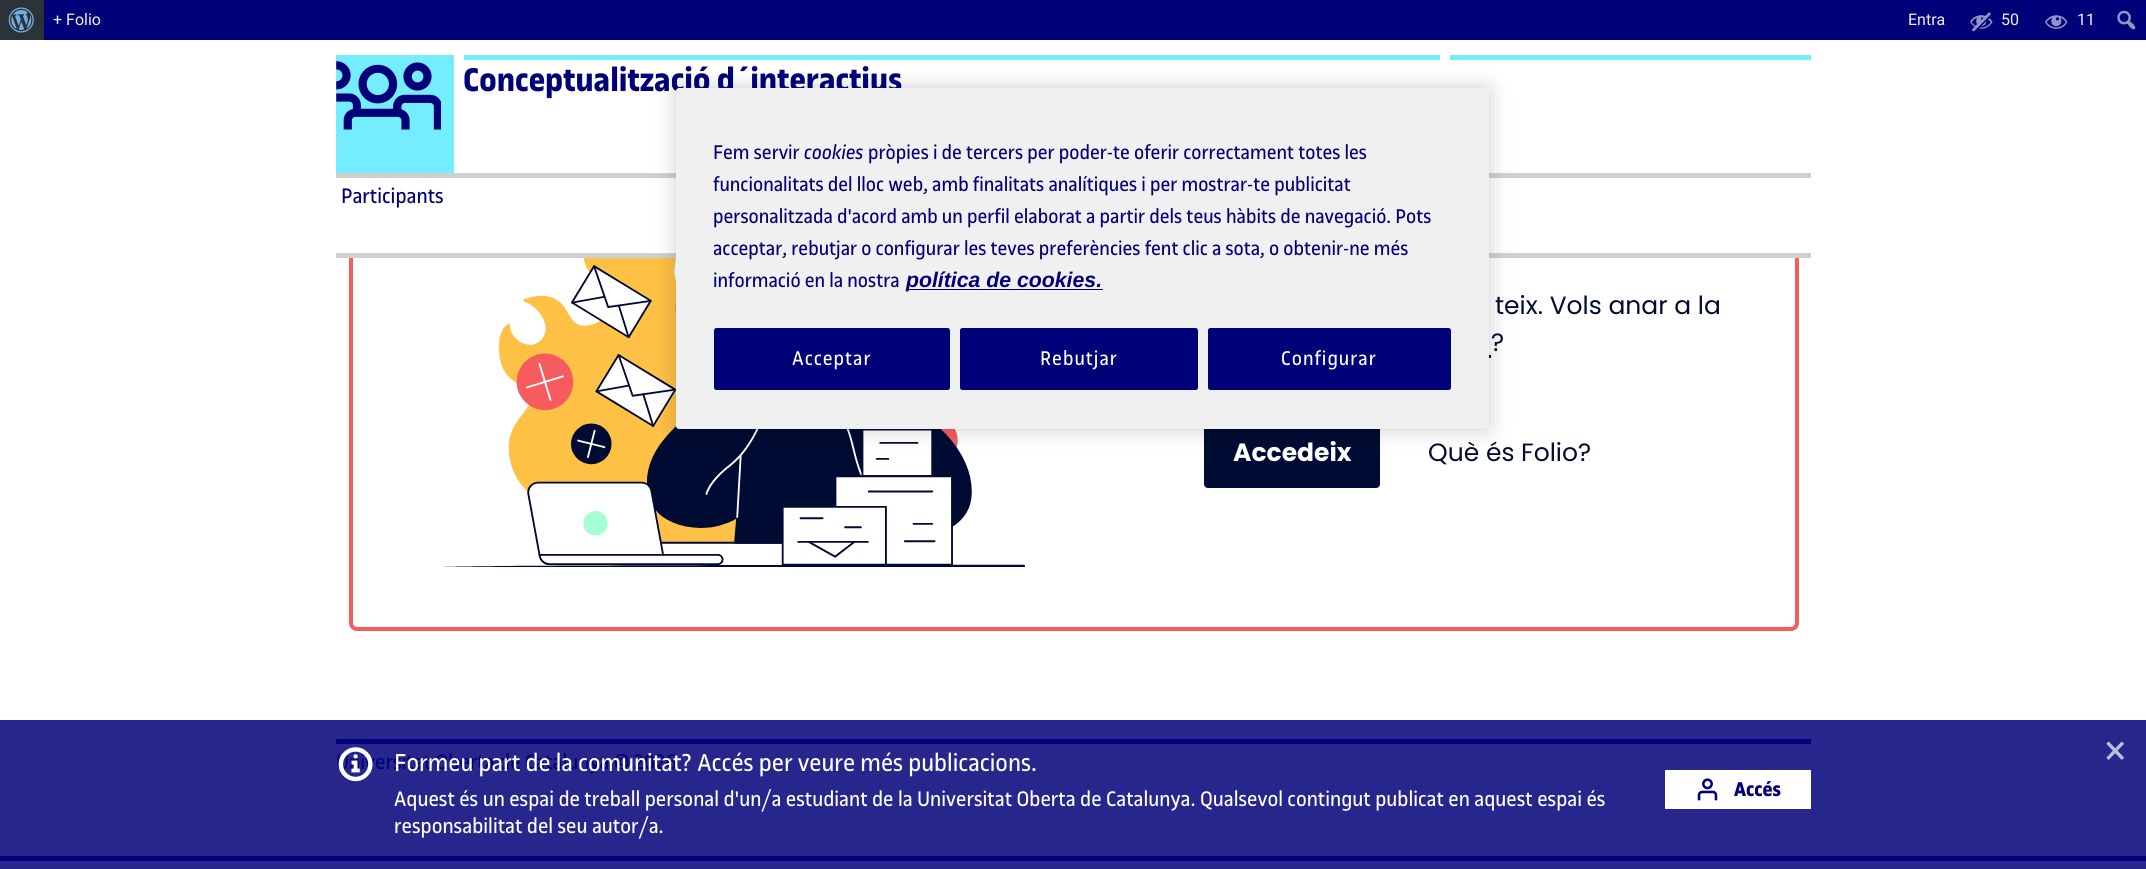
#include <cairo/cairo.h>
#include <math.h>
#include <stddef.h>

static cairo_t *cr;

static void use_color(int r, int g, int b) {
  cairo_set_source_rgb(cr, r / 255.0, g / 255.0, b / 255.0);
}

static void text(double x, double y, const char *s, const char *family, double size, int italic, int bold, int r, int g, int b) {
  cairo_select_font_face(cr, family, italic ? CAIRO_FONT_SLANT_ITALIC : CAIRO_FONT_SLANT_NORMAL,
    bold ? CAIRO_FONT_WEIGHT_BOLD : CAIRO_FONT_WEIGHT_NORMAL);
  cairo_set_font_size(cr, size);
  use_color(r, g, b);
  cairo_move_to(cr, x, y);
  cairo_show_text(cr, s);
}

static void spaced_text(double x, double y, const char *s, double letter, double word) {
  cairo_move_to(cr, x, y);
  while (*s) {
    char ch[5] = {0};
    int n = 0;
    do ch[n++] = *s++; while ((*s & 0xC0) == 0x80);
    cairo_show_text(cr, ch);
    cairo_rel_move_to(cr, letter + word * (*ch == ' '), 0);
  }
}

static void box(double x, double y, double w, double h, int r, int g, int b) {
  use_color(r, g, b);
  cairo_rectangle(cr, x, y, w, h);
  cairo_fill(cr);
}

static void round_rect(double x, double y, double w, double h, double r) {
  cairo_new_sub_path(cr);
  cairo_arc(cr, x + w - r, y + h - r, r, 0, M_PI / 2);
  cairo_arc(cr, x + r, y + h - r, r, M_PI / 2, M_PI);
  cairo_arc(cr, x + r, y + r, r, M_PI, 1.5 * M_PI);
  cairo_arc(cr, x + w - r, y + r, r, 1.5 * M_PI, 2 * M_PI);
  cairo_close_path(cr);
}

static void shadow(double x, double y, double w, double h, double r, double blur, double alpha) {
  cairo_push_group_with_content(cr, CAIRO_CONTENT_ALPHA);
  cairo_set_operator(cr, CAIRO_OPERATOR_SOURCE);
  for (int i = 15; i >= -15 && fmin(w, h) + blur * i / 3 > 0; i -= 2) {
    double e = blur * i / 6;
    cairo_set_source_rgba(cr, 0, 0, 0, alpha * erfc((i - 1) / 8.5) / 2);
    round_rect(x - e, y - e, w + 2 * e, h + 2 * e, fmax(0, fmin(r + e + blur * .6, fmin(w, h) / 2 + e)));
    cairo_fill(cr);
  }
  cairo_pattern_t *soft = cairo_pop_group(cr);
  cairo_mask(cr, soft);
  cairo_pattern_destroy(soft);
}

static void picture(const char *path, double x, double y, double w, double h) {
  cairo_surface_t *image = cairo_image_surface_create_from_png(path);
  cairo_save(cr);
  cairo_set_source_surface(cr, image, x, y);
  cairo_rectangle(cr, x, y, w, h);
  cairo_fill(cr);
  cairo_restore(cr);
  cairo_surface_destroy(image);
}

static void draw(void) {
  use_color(255, 255, 255);
  cairo_paint(cr);
  box(0, 720, 2146, 136, 38, 38, 140);
  box(44, 0, 2102, 40, 0, 0, 120);
  box(0, 0, 44, 40, 44, 51, 56);
  picture("img_01.png", 8, 7, 26, 26);
  picture("img_02.png", 1970, 12, 23, 20);
  picture("img_03.png", 2045, 15, 23, 14);
  picture("img_04.png", 2117, 10, 19, 20);
  round_rect(351, 76, 1446, 553, 6);
  use_color(246, 92, 93);
  cairo_set_line_width(cr, 4);
  cairo_stroke(cr);
  box(349, 74, 1450, 184, 255, 255, 255);
  box(1450, 55, 361, 5, 115, 237, 255);
  box(336, 55, 118, 118, 115, 237, 255);
  picture("img_05.png", 336, 61, 105, 69);
  box(464, 55, 976, 5, 115, 237, 255);
  box(336, 173, 340, 5, 208, 208, 208);
  box(336, 253, 340, 5, 208, 208, 208);
  box(1489, 173, 322, 5, 208, 208, 208);
  box(1489, 253, 322, 5, 208, 208, 208);
  picture("img_06.png", 444, 258, 581, 309);
  box(1489, 355, 2, 3, 0, 11, 51);
  round_rect(1204.5, 418.5, 175, 69, 3.5);
  cairo_fill_preserve(cr);
  cairo_set_line_width(cr, 1);
  cairo_stroke(cr);
  box(1665, 770, 146, 39, 255, 255, 255);
  picture("img_08.png", 1697, 778, 21, 23);
  box(336, 739, 1475, 5, 0, 0, 120);
  use_color(0, 0, 0);
  shadow(676, 88, 813, 341, 3, 11, 0.2);
  box(0, 861, 2146, 8, 38, 38, 140);
  box(0, 856, 2146, 5, 0, 0, 120);
  text(53, 25, "+ Folio", "Roboto", 16, 0, 0, 240, 240, 241);
  text(1908, 25, "Entra", "Roboto", 16, 0, 0, 240, 240, 241);
  text(2001, 25, "50", "Roboto", 16, 0, 0, 240, 240, 241);
  text(2077, 25, "11", "Roboto", 16, 0, 0, 240, 240, 241);
  text(463, 91, "Conceptualització d´interactius", "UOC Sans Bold", 35, 0, 1, 0, 0, 120);
  text(341, 203, "Participants", "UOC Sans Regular", 22.5, 0, 0, 0, 0, 120);
  text(1495, 314, "teix. Vols anar a la", "Poppins", 25, 0, 0, 0, 11, 51);
  text(1491, 351, "?", "Poppins", 25, 0, 0, 0, 11, 51);
  text(1233, 461, "Accedeix", "Poppins", 25, 0, 1, 255, 255, 255);
  text(1428, 461, "Què és Folio?", "Poppins", 25, 0, 0, 0, 11, 51);
  text(394, 806, "Aquest és un espai de treball personal d'un/a estudiant de la Universitat Oberta de Catalunya. Qualsevol contingut publicat en aquest espai és", "UOC Sans Regular", 22.5, 0, 0, 255, 255, 255);
  text(394, 833, "responsabilitat del seu autor/a.", "UOC Sans Regular", 22.5, 0, 0, 255, 255, 255);
  text(1734, 796, "Accés", "UOC Sans Bold", 21.25, 0, 1, 0, 0, 120);
  text(2104, 766, "×", "UOC Sans Regular", 45, 0, 0, 190, 190, 221);
  text(336, 769, "Universitat Oberta de Catalunya © 2026", "UOC Sans Regular", 22.5, 0, 0, 0, 0, 120);
  text(394, 771, "Formeu part de la comunitat? Accés per veure més publicacions.", "UOC Sans Regular", 26.25, 0, 0, 255, 255, 255);
  picture("img_07.png", 338, 747, 35, 35);
  use_color(240, 240, 240);
  round_rect(676, 88, 813, 341, 3);
  cairo_fill(cr);
  text(713, 159, "Fem servir", "UOC Sans Regular", 21.25, 0, 0, 0, 0, 120);
  text(804, 159, "cookies", "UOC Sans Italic", 21.25, 1, 0, 0, 0, 120);
  text(868, 159, "pròpies i de tercers per poder-te oferir correctament totes les", "UOC Sans Regular", 21.25, 0, 0, 0, 0, 120);
  text(713, 191, "funcionalitats del lloc web, amb finalitats analítiques i per mostrar-te publicitat", "UOC Sans Regular", 21.25, 0, 0, 0, 0, 120);
  text(713, 223, "personalitzada d'acord amb un perfil elaborat a partir dels teus hàbits de navegació. Pots", "UOC Sans Regular", 21.25, 0, 0, 0, 0, 120);
  text(713, 255, "acceptar, rebutjar o configurar les teves preferències fent clic a sota, o obtenir-ne més", "UOC Sans Regular", 21.25, 0, 0, 0, 0, 120);
  text(713, 287, "informació en la nostra", "UOC Sans Regular", 21.25, 0, 0, 0, 0, 120);
  box(906, 289, 197, 1, 0, 0, 120);
  text(906, 287, "política de cookies.", "Liberation Sans", 21.25, 1, 1, 0, 0, 120);
  round_rect(714.5, 328.5, 235, 61, 2);
  cairo_fill_preserve(cr);
  cairo_stroke(cr);
  cairo_select_font_face(cr, "UOC Sans Regular", CAIRO_FONT_SLANT_NORMAL, CAIRO_FONT_WEIGHT_NORMAL);
  use_color(255, 255, 255);
  spaced_text(792, 365, "Acceptar", 1, 0);
  use_color(0, 0, 120);
  round_rect(960.5, 328.5, 237, 61, 2);
  cairo_fill_preserve(cr);
  cairo_stroke(cr);
  use_color(255, 255, 255);
  spaced_text(1040, 365, "Rebutjar", 1, 0);
  use_color(0, 0, 120);
  round_rect(1208.5, 328.5, 242, 61, 2);
  cairo_fill_preserve(cr);
  cairo_stroke(cr);
  use_color(255, 255, 255);
  spaced_text(1281, 365, "Configurar", 1, 0);
}

int main(void) {
  cairo_surface_t *surface = cairo_image_surface_create(CAIRO_FORMAT_RGB24, 2146, 869);
  cr = cairo_create(surface);
  cairo_font_options_t *options = cairo_font_options_create();
  cairo_font_options_set_hint_metrics(options, CAIRO_HINT_METRICS_OFF);
  cairo_font_options_set_hint_style(options, CAIRO_HINT_STYLE_NONE);
  cairo_set_font_options(cr, options);
  cairo_set_miter_limit(cr, 4);
  draw();
  cairo_surface_write_to_png(surface, "out.png");
  cairo_font_options_destroy(options);
  cairo_destroy(cr);
  cairo_surface_destroy(surface);
  return 0;
}
